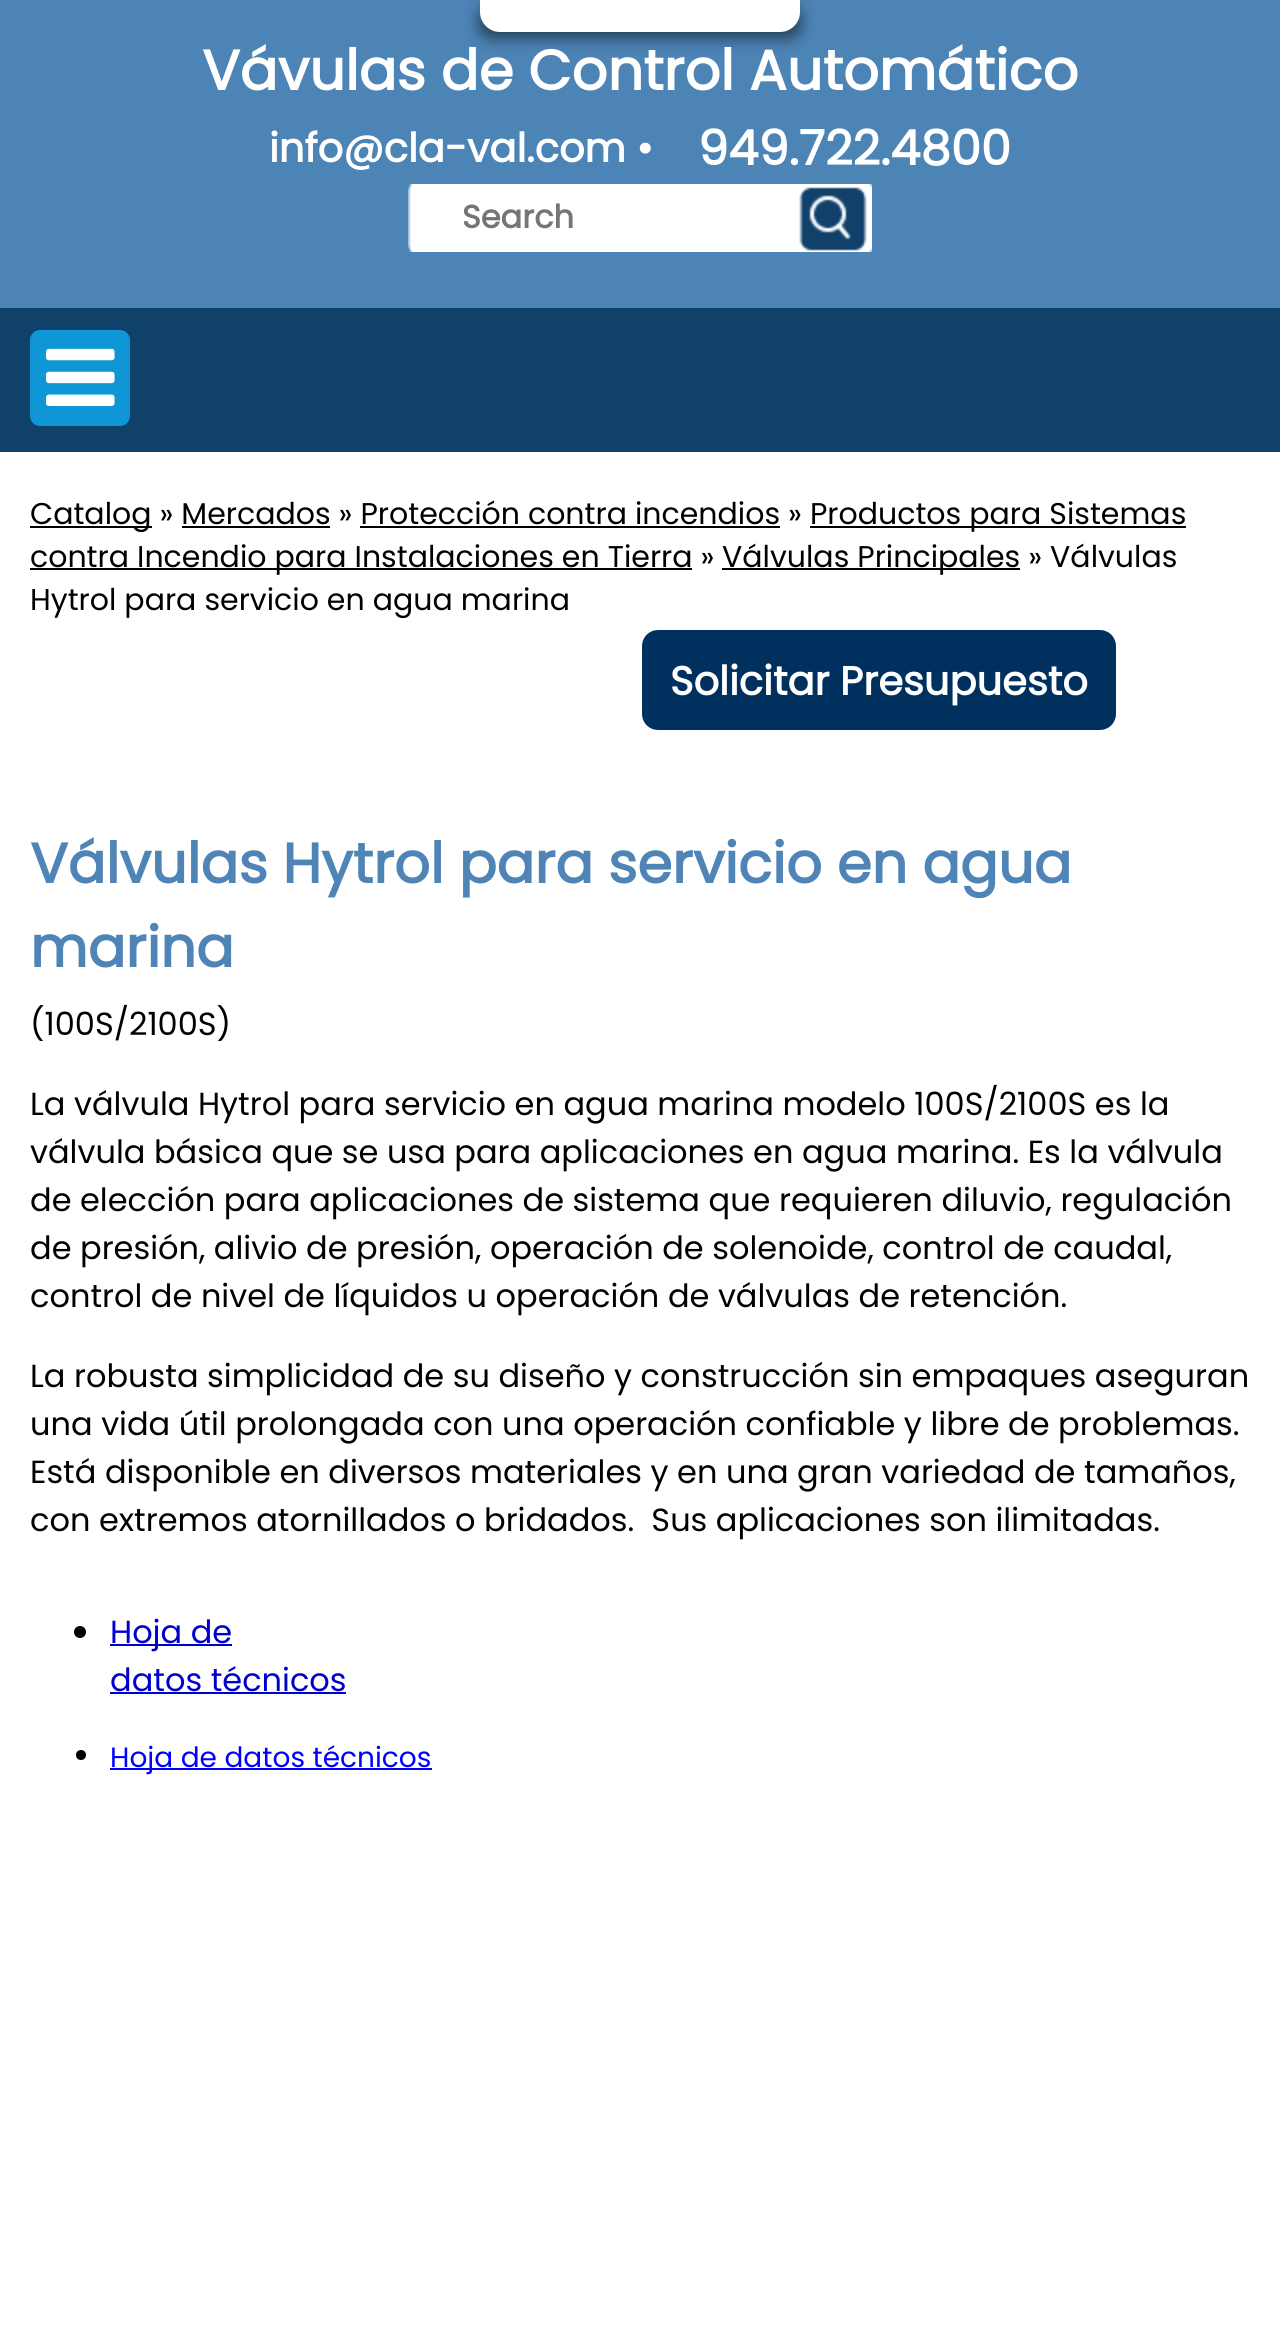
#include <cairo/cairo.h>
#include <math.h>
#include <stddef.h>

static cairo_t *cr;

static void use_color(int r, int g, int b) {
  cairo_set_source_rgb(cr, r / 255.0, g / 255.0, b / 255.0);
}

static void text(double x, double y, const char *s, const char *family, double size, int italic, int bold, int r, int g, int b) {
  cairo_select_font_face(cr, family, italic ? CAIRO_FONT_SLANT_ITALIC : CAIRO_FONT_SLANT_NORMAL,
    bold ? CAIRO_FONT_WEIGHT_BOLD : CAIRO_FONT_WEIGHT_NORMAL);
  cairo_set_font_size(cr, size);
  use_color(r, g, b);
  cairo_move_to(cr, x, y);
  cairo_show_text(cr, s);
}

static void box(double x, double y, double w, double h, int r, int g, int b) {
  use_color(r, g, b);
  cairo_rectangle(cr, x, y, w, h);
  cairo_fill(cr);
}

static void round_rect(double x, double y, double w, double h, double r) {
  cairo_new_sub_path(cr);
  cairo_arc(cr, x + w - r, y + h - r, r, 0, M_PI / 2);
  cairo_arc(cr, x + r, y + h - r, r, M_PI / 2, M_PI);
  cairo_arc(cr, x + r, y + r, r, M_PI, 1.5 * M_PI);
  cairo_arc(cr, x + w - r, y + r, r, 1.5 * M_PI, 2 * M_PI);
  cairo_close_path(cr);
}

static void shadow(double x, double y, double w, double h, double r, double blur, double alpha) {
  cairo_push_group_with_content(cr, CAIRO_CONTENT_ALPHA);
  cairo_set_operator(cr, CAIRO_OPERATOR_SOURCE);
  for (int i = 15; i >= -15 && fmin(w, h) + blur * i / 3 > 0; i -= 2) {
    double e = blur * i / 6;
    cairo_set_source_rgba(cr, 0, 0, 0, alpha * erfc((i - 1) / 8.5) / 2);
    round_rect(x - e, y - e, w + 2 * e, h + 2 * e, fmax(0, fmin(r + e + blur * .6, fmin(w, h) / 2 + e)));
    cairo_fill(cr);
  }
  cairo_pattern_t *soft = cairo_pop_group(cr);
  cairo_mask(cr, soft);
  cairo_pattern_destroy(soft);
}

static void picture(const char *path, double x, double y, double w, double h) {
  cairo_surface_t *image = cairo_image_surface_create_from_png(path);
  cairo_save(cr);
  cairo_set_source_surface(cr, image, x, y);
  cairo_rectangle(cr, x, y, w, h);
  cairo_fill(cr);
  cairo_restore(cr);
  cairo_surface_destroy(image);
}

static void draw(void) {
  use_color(255, 255, 255);
  cairo_paint(cr);
  box(0, 0, 1280, 308, 77, 132, 182);
  use_color(0, 0, 0);
  shadow(480, 6, 320, 32, 20, 8, 0.54);
  use_color(255, 255, 255);
  cairo_new_path(cr);
  cairo_move_to(cr, 480, 0);
  cairo_line_to(cr, 800, 0);
  cairo_line_to(cr, 800, 12);
  cairo_curve_to(cr, 800, 23, 791, 32, 780, 32);
  cairo_line_to(cr, 500, 32);
  cairo_curve_to(cr, 489, 32, 480, 23, 480, 12);
  cairo_close_path(cr);
  cairo_fill(cr);
  picture("img_01.png", 408, 184, 464, 68);
  box(0, 308, 1280, 144, 16, 65, 107);
  use_color(15, 150, 214);
  round_rect(30, 330, 100, 96, 10);
  cairo_fill(cr);
  picture("img_02.png", 46, 348, 69, 58);
  box(30, 526, 122, 2, 0, 0, 0);
  box(810, 526, 376, 2, 0, 0, 0);
  box(182, 526, 148, 2, 0, 0, 0);
  box(360, 526, 420, 2, 0, 0, 0);
  box(30, 568, 662, 2, 0, 0, 0);
  box(722, 568, 298, 2, 0, 0, 0);
  use_color(0, 48, 93);
  round_rect(644, 632, 470, 96, 14);
  cairo_fill_preserve(cr);
  cairo_set_line_width(cr, 4);
  cairo_stroke(cr);
  use_color(0, 0, 0);
  cairo_arc(cr, 80, 1632, 6, 0, 2 * M_PI);
  cairo_fill(cr);
  box(110, 1644, 122, 2, 0, 0, 205);
  box(110, 1692, 236, 2, 0, 0, 205);
  use_color(0, 0, 0);
  cairo_arc(cr, 81, 1755, 5, 0, 2 * M_PI);
  cairo_fill(cr);
  box(110, 1768, 322, 2, 0, 0, 255);
  text(202, 90, "Vávulas de Control Automático", "Poppins", 56, 0, 1, 255, 255, 255);
  text(269, 162, "info@cla-val.com •", "Poppins", 40, 0, 1, 255, 255, 255);
  text(698, 165, "949.722.4800", "Poppins", 48, 0, 1, 255, 255, 255);
  text(462, 228, "Search", "Poppins", 32, 0, 1, 117, 117, 117);
  text(30, 524, "Catalog » Mercados » Protección contra incendios »", "Poppins", 30, 0, 0, 0, 0, 0);
  text(810, 524, "Productos para Sistemas", "Poppins", 30, 0, 0, 0, 0, 0);
  text(30, 567, "contra Incendio para Instalaciones en Tierra »", "Poppins", 30, 0, 0, 0, 0, 0);
  text(722, 567, "Válvulas Principales » Válvulas", "Poppins", 30, 0, 0, 0, 0, 0);
  text(30, 610, "Hytrol para servicio en agua marina", "Poppins", 30, 0, 0, 0, 0, 0);
  text(670, 695, "Solicitar Presupuesto", "Poppins", 40, 0, 1, 255, 255, 255);
  text(30, 883, "Válvulas Hytrol para servicio en agua", "Poppins", 56, 0, 1, 79, 132, 182);
  text(30, 967, "marina", "Poppins", 56, 0, 1, 79, 132, 182);
  text(30, 1035, "(100S/2100S)", "Poppins", 32, 0, 0, 0, 0, 0);
  text(30, 1115, "La válvula Hytrol para servicio en agua marina modelo 100S/2100S es la", "Poppins", 32, 0, 0, 0, 0, 0);
  text(30, 1163, "válvula básica que se usa para aplicaciones en agua marina. Es la válvula", "Poppins", 32, 0, 0, 0, 0, 0);
  text(30, 1211, "de elección para aplicaciones de sistema que requieren diluvio, regulación", "Poppins", 32, 0, 0, 0, 0, 0);
  text(30, 1259, "de presión, alivio de presión, operación de solenoide, control de caudal,", "Poppins", 32, 0, 0, 0, 0, 0);
  text(30, 1307, "control de nivel de líquidos u operación de válvulas de retención.", "Poppins", 32, 0, 0, 0, 0, 0);
  text(30, 1387, "La robusta simplicidad de su diseño y construcción sin empaques aseguran", "Poppins", 32, 0, 0, 0, 0, 0);
  text(30, 1435, "una vida útil prolongada con una operación confiable y libre de problemas.", "Poppins", 32, 0, 0, 0, 0, 0);
  text(30, 1483, "Está disponible en diversos materiales y en una gran variedad de tamaños,", "Poppins", 32, 0, 0, 0, 0, 0);
  text(30, 1531, "con extremos atornillados o bridados.  Sus aplicaciones son ilimitadas.", "Poppins", 32, 0, 0, 0, 0, 0);
  text(110, 1643, "Hoja de", "Poppins", 32, 0, 0, 0, 0, 205);
  text(110, 1691, "datos técnicos", "Poppins", 32, 0, 0, 0, 0, 205);
  text(110, 1767, "Hoja de datos técnicos", "Poppins", 28, 0, 0, 0, 0, 255);
}

int main(void) {
  cairo_surface_t *surface = cairo_image_surface_create(CAIRO_FORMAT_RGB24, 1280, 2341);
  cr = cairo_create(surface);
  cairo_font_options_t *options = cairo_font_options_create();
  cairo_font_options_set_hint_metrics(options, CAIRO_HINT_METRICS_OFF);
  cairo_font_options_set_hint_style(options, CAIRO_HINT_STYLE_NONE);
  cairo_set_font_options(cr, options);
  cairo_set_miter_limit(cr, 4);
  draw();
  cairo_surface_write_to_png(surface, "out.png");
  cairo_font_options_destroy(options);
  cairo_destroy(cr);
  cairo_surface_destroy(surface);
  return 0;
}
